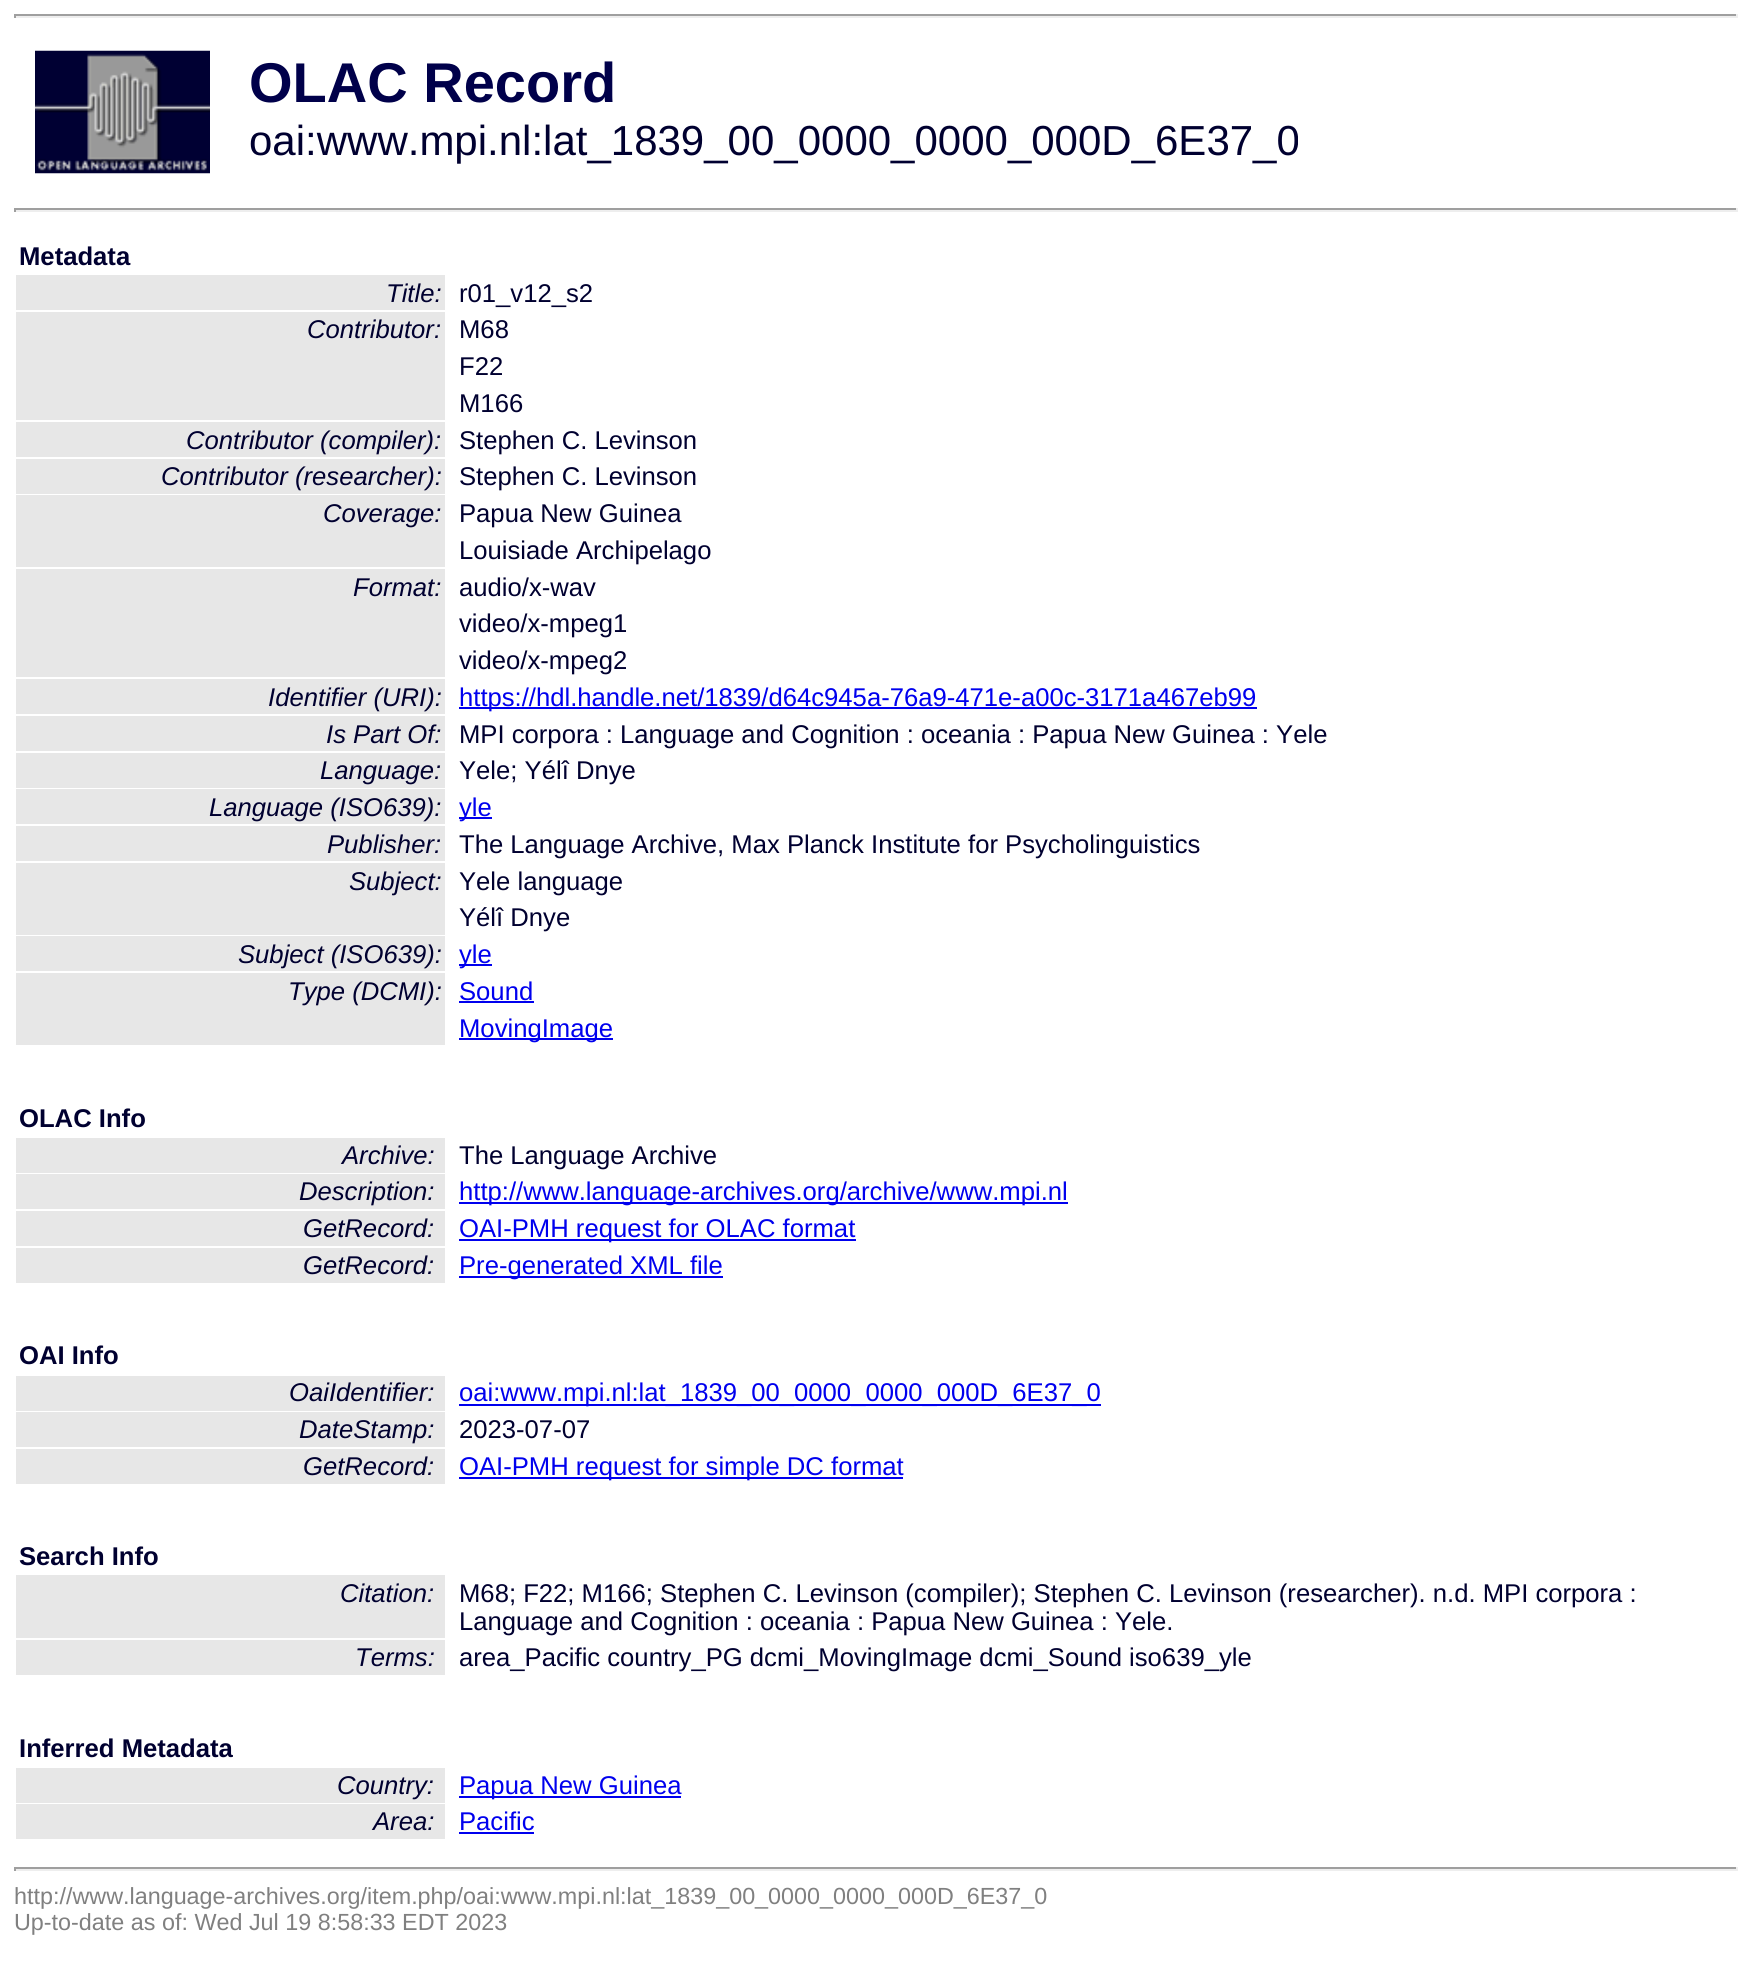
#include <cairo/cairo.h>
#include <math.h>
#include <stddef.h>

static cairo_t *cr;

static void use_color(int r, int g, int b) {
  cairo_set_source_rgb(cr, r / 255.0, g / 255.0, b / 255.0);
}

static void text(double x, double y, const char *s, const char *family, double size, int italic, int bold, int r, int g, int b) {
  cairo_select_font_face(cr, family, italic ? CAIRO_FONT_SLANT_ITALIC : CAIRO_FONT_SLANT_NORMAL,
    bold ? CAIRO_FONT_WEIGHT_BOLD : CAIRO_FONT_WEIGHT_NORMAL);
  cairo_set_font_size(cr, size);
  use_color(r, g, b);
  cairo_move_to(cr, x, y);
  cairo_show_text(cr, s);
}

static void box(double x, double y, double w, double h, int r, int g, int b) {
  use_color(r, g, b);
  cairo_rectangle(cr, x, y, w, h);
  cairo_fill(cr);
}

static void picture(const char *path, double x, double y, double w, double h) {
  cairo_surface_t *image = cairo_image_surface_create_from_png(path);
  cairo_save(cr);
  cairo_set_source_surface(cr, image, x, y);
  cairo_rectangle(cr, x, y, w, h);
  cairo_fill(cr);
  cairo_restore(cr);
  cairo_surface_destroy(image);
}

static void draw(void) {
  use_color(255, 255, 255);
  cairo_paint(cr);
  box(14, 14, 1724, 2, 159, 159, 159);
  box(1736, 14, 2, 4, 238, 238, 238);
  box(14, 16, 1724, 2, 238, 238, 238);
  box(14, 14, 2, 4, 159, 159, 159);
  picture("img_01.png", 35, 50, 175, 124);
  box(14, 208, 1724, 2, 159, 159, 159);
  box(1736, 208, 2, 4, 238, 238, 238);
  box(14, 210, 1724, 2, 238, 238, 238);
  box(14, 208, 2, 4, 159, 159, 159);
  box(16, 275, 429, 35, 231, 231, 231);
  box(16, 312, 429, 108, 231, 231, 231);
  box(16, 422, 429, 35, 231, 231, 231);
  box(16, 459, 429, 35, 231, 231, 231);
  box(16, 495, 429, 72, 231, 231, 231);
  box(16, 569, 429, 108, 231, 231, 231);
  box(16, 679, 429, 35, 231, 231, 231);
  box(459, 707, 798, 2, 0, 0, 238);
  box(16, 716, 429, 35, 231, 231, 231);
  box(16, 753, 429, 35, 231, 231, 231);
  box(16, 789, 429, 35, 231, 231, 231);
  box(459, 817, 33, 2, 0, 0, 238);
  box(16, 826, 429, 35, 231, 231, 231);
  box(16, 863, 429, 72, 231, 231, 231);
  box(16, 936, 429, 35, 231, 231, 231);
  box(459, 964, 33, 2, 0, 0, 238);
  box(16, 973, 429, 72, 231, 231, 231);
  box(459, 1001, 75, 2, 0, 0, 238);
  box(459, 1038, 154, 2, 0, 0, 238);
  box(16, 1138, 429, 35, 231, 231, 231);
  box(16, 1174, 429, 35, 231, 231, 231);
  box(459, 1202, 609, 2, 0, 0, 238);
  box(16, 1211, 429, 35, 231, 231, 231);
  box(459, 1239, 397, 2, 0, 0, 238);
  box(16, 1248, 429, 35, 231, 231, 231);
  box(459, 1276, 264, 2, 0, 0, 238);
  box(16, 1376, 429, 35, 231, 231, 231);
  box(459, 1404, 642, 2, 0, 0, 238);
  box(16, 1412, 429, 35, 231, 231, 231);
  box(16, 1449, 429, 35, 231, 231, 231);
  box(459, 1477, 444, 2, 0, 0, 238);
  box(16, 1575, 429, 63, 231, 231, 231);
  box(16, 1640, 429, 35, 231, 231, 231);
  box(16, 1768, 429, 35, 231, 231, 231);
  box(459, 1796, 222, 2, 0, 0, 238);
  box(16, 1804, 429, 35, 231, 231, 231);
  box(459, 1832, 75, 2, 0, 0, 238);
  box(14, 1867, 1724, 2, 159, 159, 159);
  box(1736, 1867, 2, 4, 238, 238, 238);
  box(14, 1869, 1724, 2, 238, 238, 238);
  box(14, 1867, 2, 4, 159, 159, 159);
  text(249, 102, "OLAC Record", "Liberation Sans", 56, 0, 1, 0, 0, 74);
  text(249, 155, "oai:www.mpi.nl:lat_1839_00_0000_0000_000D_6E37_0", "Liberation Sans", 42, 0, 0, 0, 0, 48);
  text(19, 265, "Metadata", "Liberation Sans", 25.65, 0, 1, 0, 0, 48);
  text(386, 302, "Title:", "Liberation Sans", 25.65, 1, 0, 0, 0, 48);
  text(459, 302, "r01_v12_s2", "Liberation Sans", 25.65, 0, 0, 0, 0, 48);
  text(307, 338, "Contributor:", "Liberation Sans", 25.65, 1, 0, 0, 0, 48);
  text(459, 338, "M68", "Liberation Sans", 25.65, 0, 0, 0, 0, 48);
  text(459, 375, "F22", "Liberation Sans", 25.65, 0, 0, 0, 0, 48);
  text(459, 412, "M166", "Liberation Sans", 25.65, 0, 0, 0, 0, 48);
  text(186, 449, "Contributor (compiler):", "Liberation Sans", 25.65, 1, 0, 0, 0, 48);
  text(459, 449, "Stephen C. Levinson", "Liberation Sans", 25.65, 0, 0, 0, 0, 48);
  text(161, 485, "Contributor (researcher):", "Liberation Sans", 25.65, 1, 0, 0, 0, 48);
  text(459, 485, "Stephen C. Levinson", "Liberation Sans", 25.65, 0, 0, 0, 0, 48);
  text(323, 522, "Coverage:", "Liberation Sans", 25.65, 1, 0, 0, 0, 48);
  text(459, 522, "Papua New Guinea", "Liberation Sans", 25.65, 0, 0, 0, 0, 48);
  text(459, 559, "Louisiade Archipelago", "Liberation Sans", 25.65, 0, 0, 0, 0, 48);
  text(353, 596, "Format:", "Liberation Sans", 25.65, 1, 0, 0, 0, 48);
  text(459, 596, "audio/x-wav", "Liberation Sans", 25.65, 0, 0, 0, 0, 48);
  text(459, 632, "video/x-mpeg1", "Liberation Sans", 25.65, 0, 0, 0, 0, 48);
  text(459, 669, "video/x-mpeg2", "Liberation Sans", 25.65, 0, 0, 0, 0, 48);
  text(268, 706, "Identifier (URI):", "Liberation Sans", 25.65, 1, 0, 0, 0, 48);
  text(459, 706, "https://hdl.handle.net/1839/d64c945a-76a9-471e-a00c-3171a467eb99", "Liberation Sans", 25.65, 0, 0, 0, 0, 238);
  text(326, 743, "Is Part Of:", "Liberation Sans", 25.65, 1, 0, 0, 0, 48);
  text(459, 743, "MPI corpora : Language and Cognition : oceania : Papua New Guinea : Yele", "Liberation Sans", 25.65, 0, 0, 0, 0, 48);
  text(320, 779, "Language:", "Liberation Sans", 25.65, 1, 0, 0, 0, 48);
  text(459, 779, "Yele; Yélî Dnye", "Liberation Sans", 25.65, 0, 0, 0, 0, 48);
  text(209, 816, "Language (ISO639):", "Liberation Sans", 25.65, 1, 0, 0, 0, 48);
  text(459, 816, "yle", "Liberation Sans", 25.65, 0, 0, 0, 0, 238);
  text(327, 853, "Publisher:", "Liberation Sans", 25.65, 1, 0, 0, 0, 48);
  text(459, 853, "The Language Archive, Max Planck Institute for Psycholinguistics", "Liberation Sans", 25.65, 0, 0, 0, 0, 48);
  text(349, 890, "Subject:", "Liberation Sans", 25.65, 1, 0, 0, 0, 48);
  text(459, 890, "Yele language", "Liberation Sans", 25.65, 0, 0, 0, 0, 48);
  text(459, 926, "Yélî Dnye", "Liberation Sans", 25.65, 0, 0, 0, 0, 48);
  text(238, 963, "Subject (ISO639):", "Liberation Sans", 25.65, 1, 0, 0, 0, 48);
  text(459, 963, "yle", "Liberation Sans", 25.65, 0, 0, 0, 0, 238);
  text(288, 1000, "Type (DCMI):", "Liberation Sans", 25.65, 1, 0, 0, 0, 48);
  text(459, 1000, "Sound", "Liberation Sans", 25.65, 0, 0, 0, 0, 238);
  text(459, 1037, "MovingImage", "Liberation Sans", 25.65, 0, 0, 0, 0, 238);
  text(19, 1127, "OLAC Info", "Liberation Sans", 25.65, 0, 1, 0, 0, 48);
  text(342, 1164, "Archive:", "Liberation Sans", 25.65, 1, 0, 0, 0, 48);
  text(459, 1164, "The Language Archive", "Liberation Sans", 25.65, 0, 0, 0, 0, 48);
  text(299, 1200, "Description:", "Liberation Sans", 25.65, 1, 0, 0, 0, 48);
  text(459, 1200, "http://www.language-archives.org/archive/www.mpi.nl", "Liberation Sans", 25.65, 0, 0, 0, 0, 238);
  text(303, 1237, "GetRecord:", "Liberation Sans", 25.65, 1, 0, 0, 0, 48);
  text(459, 1237, "OAI-PMH request for OLAC format", "Liberation Sans", 25.65, 0, 0, 0, 0, 238);
  text(303, 1274, "GetRecord:", "Liberation Sans", 25.65, 1, 0, 0, 0, 48);
  text(459, 1274, "Pre-generated XML file", "Liberation Sans", 25.65, 0, 0, 0, 0, 238);
  text(19, 1364, "OAI Info", "Liberation Sans", 25.65, 0, 1, 0, 0, 48);
  text(289, 1401, "OaiIdentifier:", "Liberation Sans", 25.65, 1, 0, 0, 0, 48);
  text(459, 1401, "oai:www.mpi.nl:lat_1839_00_0000_0000_000D_6E37_0", "Liberation Sans", 25.65, 0, 0, 0, 0, 238);
  text(299, 1438, "DateStamp:", "Liberation Sans", 25.65, 1, 0, 0, 0, 48);
  text(459, 1438, "2023-07-07", "Liberation Sans", 25.65, 0, 0, 0, 0, 48);
  text(303, 1475, "GetRecord:", "Liberation Sans", 25.65, 1, 0, 0, 0, 48);
  text(459, 1475, "OAI-PMH request for simple DC format", "Liberation Sans", 25.65, 0, 0, 0, 0, 238);
  text(19, 1565, "Search Info", "Liberation Sans", 25.65, 0, 1, 0, 0, 48);
  text(340, 1602, "Citation:", "Liberation Sans", 25.65, 1, 0, 0, 0, 48);
  text(459, 1602, "M68; F22; M166; Stephen C. Levinson (compiler); Stephen C. Levinson (researcher). n.d. MPI corpora :", "Liberation Sans", 25.65, 0, 0, 0, 0, 48);
  text(459, 1630, "Language and Cognition : oceania : Papua New Guinea : Yele.", "Liberation Sans", 25.65, 0, 0, 0, 0, 48);
  text(355, 1666, "Terms:", "Liberation Sans", 25.65, 1, 0, 0, 0, 48);
  text(459, 1666, "area_Pacific country_PG dcmi_MovingImage dcmi_Sound iso639_yle", "Liberation Sans", 25.65, 0, 0, 0, 0, 48);
  text(19, 1757, "Inferred Metadata", "Liberation Sans", 25.65, 0, 1, 0, 0, 48);
  text(337, 1794, "Country:", "Liberation Sans", 25.65, 1, 0, 0, 0, 48);
  text(459, 1794, "Papua New Guinea", "Liberation Sans", 25.65, 0, 0, 0, 0, 238);
  text(373, 1830, "Area:", "Liberation Sans", 25.65, 1, 0, 0, 0, 48);
  text(459, 1830, "Pacific", "Liberation Sans", 25.65, 0, 0, 0, 0, 238);
  text(14, 1904, "http://www.language-archives.org/item.php/oai:www.mpi.nl:lat_1839_00_0000_0000_000D_6E37_0", "Liberation Sans", 23.35, 0, 0, 128, 128, 128);
  text(14, 1930, "Up-to-date as of: Wed Jul 19 8:58:33 EDT 2023", "Liberation Sans", 23.35, 0, 0, 128, 128, 128);
}

int main(void) {
  cairo_surface_t *surface = cairo_image_surface_create(CAIRO_FORMAT_RGB24, 1751, 1977);
  cr = cairo_create(surface);
  cairo_font_options_t *options = cairo_font_options_create();
  cairo_font_options_set_hint_metrics(options, CAIRO_HINT_METRICS_OFF);
  cairo_font_options_set_hint_style(options, CAIRO_HINT_STYLE_NONE);
  cairo_set_font_options(cr, options);
  cairo_set_miter_limit(cr, 4);
  draw();
  cairo_surface_write_to_png(surface, "out.png");
  cairo_font_options_destroy(options);
  cairo_destroy(cr);
  cairo_surface_destroy(surface);
  return 0;
}
